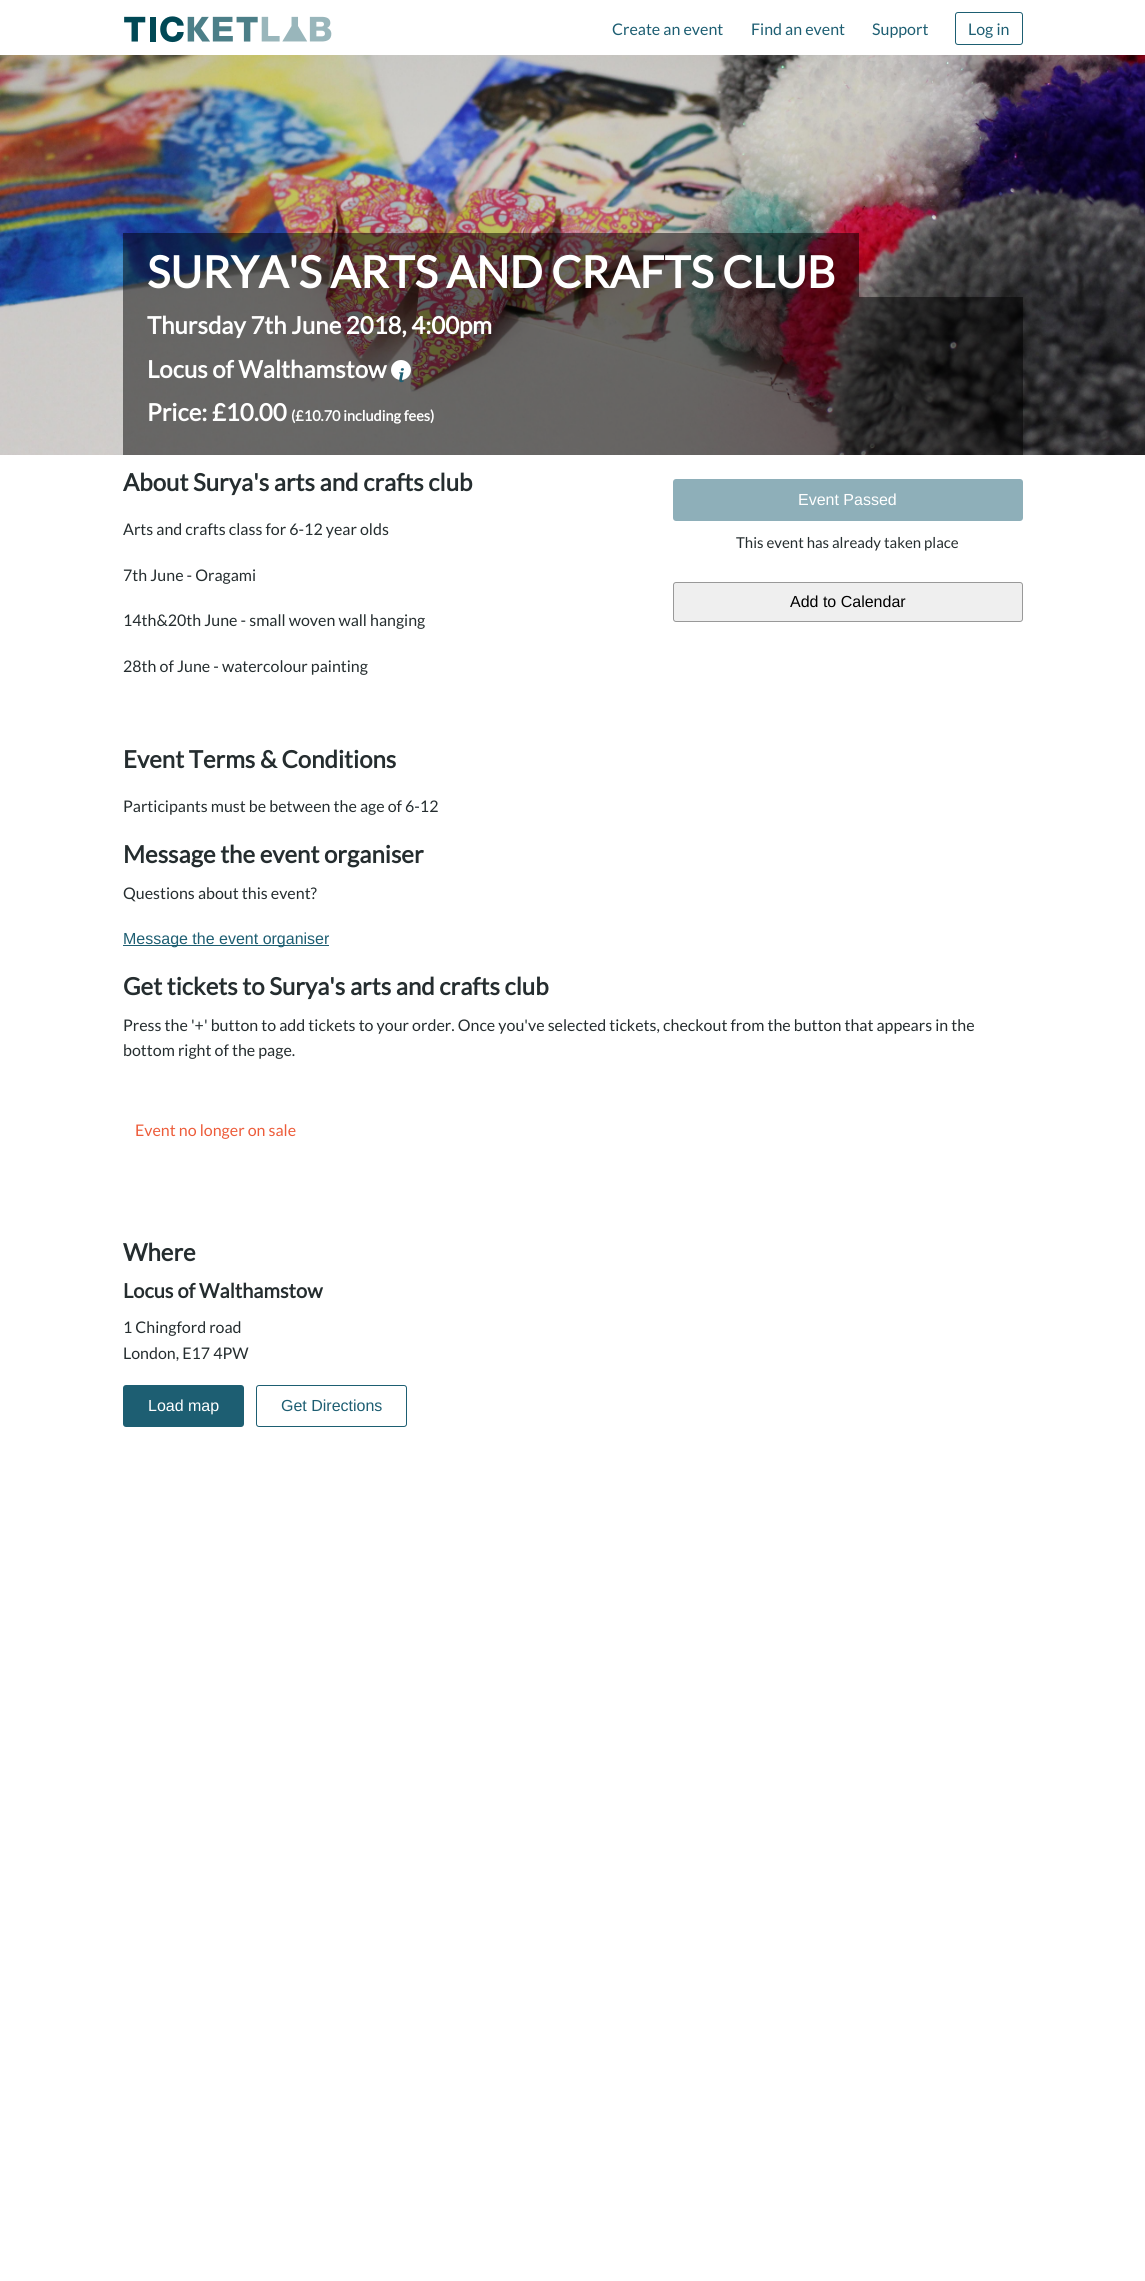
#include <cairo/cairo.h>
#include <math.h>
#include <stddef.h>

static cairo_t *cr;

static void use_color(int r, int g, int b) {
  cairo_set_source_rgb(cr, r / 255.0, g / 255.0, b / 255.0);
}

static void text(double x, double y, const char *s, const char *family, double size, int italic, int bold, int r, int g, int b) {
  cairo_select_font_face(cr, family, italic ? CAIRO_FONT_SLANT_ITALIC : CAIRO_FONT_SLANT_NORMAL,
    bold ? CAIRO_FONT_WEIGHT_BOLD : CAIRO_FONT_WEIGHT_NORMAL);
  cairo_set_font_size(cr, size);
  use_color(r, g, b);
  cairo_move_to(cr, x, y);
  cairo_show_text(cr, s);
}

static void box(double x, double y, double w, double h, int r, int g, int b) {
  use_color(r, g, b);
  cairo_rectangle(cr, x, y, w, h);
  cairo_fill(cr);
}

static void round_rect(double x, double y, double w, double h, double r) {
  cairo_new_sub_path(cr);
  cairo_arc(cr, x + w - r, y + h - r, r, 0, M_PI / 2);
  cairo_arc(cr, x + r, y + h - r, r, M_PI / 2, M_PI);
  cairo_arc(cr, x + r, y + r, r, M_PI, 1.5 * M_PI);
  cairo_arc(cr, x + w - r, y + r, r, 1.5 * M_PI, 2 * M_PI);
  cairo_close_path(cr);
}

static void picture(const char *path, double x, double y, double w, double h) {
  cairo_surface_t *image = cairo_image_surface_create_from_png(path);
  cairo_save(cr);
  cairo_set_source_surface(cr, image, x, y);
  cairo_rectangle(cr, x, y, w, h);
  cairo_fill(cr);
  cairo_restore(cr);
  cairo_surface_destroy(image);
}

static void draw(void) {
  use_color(255, 255, 255);
  cairo_paint(cr);
  picture("img_01.png", 124, 16, 208, 27);
  round_rect(955.5, 12.5, 67, 32, 2.5);
  use_color(29, 94, 114);
  cairo_set_line_width(cr, 1);
  cairo_stroke(cr);
  picture("img_02.png", 0, 55, 1145, 400);
  cairo_set_source_rgba(cr, 0, 0, 0, 0.5);
  cairo_rectangle(cr, 123, 233, 736, 64);
  cairo_fill(cr);
  cairo_rectangle(cr, 123, 297, 900, 158);
  cairo_fill(cr);
  use_color(255, 255, 255);
  cairo_arc(cr, 401, 370, 10, 0, 2 * M_PI);
  cairo_fill(cr);
  use_color(142, 175, 185);
  round_rect(673, 479, 350, 42, 3);
  cairo_fill(cr);
  use_color(239, 239, 239);
  round_rect(673.5, 582.5, 349, 39, 2.5);
  cairo_fill_preserve(cr);
  use_color(153, 153, 153);
  cairo_stroke(cr);
  box(123, 945, 206, 1, 29, 94, 114);
  round_rect(123, 1385, 121, 42, 3);
  cairo_fill(cr);
  round_rect(256.5, 1385.5, 150, 41, 2.5);
  cairo_stroke(cr);
  text(612, 35, "Create an event", "Lato", 16, 0, 0, 29, 94, 114);
  text(751, 35, "Find an event", "Lato", 16, 0, 0, 29, 94, 114);
  text(872, 35, "Support", "Lato", 16, 0, 0, 29, 94, 114);
  text(968, 35, "Log in", "Lato", 16, 0, 0, 29, 94, 114);
  text(147, 288, "SURYA'S ARTS AND CRAFTS CLUB", "Lato", 44, 0, 1, 255, 255, 255);
  text(147, 334, "Thursday 7th June 2018, 4:00pm", "Lato", 24, 0, 1, 255, 255, 255);
  text(147, 378, "Locus of Walthamstow", "Lato", 24, 0, 1, 255, 255, 255);
  text(398, 382, "i", "Noto Serif", 18, 1, 1, 29, 94, 114);
  text(147, 421, "Price: £10.00", "Lato", 24, 0, 1, 255, 255, 255);
  text(291, 421, "(£10.70 including fees)", "Lato", 14.5, 0, 1, 255, 255, 255);
  text(123, 491, "About Surya's arts and crafts club", "Lato", 24, 0, 1, 37, 45, 47);
  text(123, 535, "Arts and crafts class for 6-12 year olds", "Lato", 16, 0, 0, 37, 45, 47);
  text(123, 581, "7th June - Oragami", "Lato", 16, 0, 0, 37, 45, 47);
  text(123, 626, "14th&20th June - small woven wall hanging", "Lato", 16, 0, 0, 37, 45, 47);
  text(123, 672, "28th of June - watercolour painting", "Lato", 16, 0, 0, 37, 45, 47);
  text(798, 505, "Event Passed", "Liberation Sans", 16, 0, 0, 255, 255, 255);
  text(736, 548, "This event has already taken place", "Lato", 15, 0, 0, 37, 45, 47);
  text(790, 607, "Add to Calendar", "Liberation Sans", 16, 0, 0, 0, 0, 0);
  text(123, 768, "Event Terms & Conditions", "Lato", 24, 0, 1, 37, 45, 47);
  text(123, 812, "Participants must be between the age of 6-12", "Lato", 16, 0, 0, 37, 45, 47);
  text(123, 863, "Message the event organiser", "Lato", 24, 0, 1, 37, 45, 47);
  text(123, 899, "Questions about this event?", "Lato", 16, 0, 0, 37, 45, 47);
  text(123, 944, "Message the event organiser", "Liberation Sans", 16, 0, 0, 29, 94, 114);
  text(123, 995, "Get tickets to Surya's arts and crafts club", "Lato", 24, 0, 1, 37, 45, 47);
  text(123, 1031, "Press the '+' button to add tickets to your order. Once you've selected tickets, checkout from the button that appears in the", "Lato", 16, 0, 0, 37, 45, 47);
  text(123, 1056, "bottom right of the page.", "Lato", 16, 0, 0, 37, 45, 47);
  text(135, 1136, "Event no longer on sale", "Lato", 16, 0, 0, 237, 92, 58);
  text(123, 1261, "Where", "Lato", 24, 0, 1, 37, 45, 47);
  text(123, 1298, "Locus of Walthamstow", "Lato", 20, 0, 1, 37, 45, 47);
  text(123, 1333, "1 Chingford road", "Lato", 16, 0, 0, 37, 45, 47);
  text(123, 1359, "London, E17 4PW", "Lato", 16, 0, 0, 37, 45, 47);
  text(148, 1411, "Load map", "Liberation Sans", 16, 0, 0, 255, 255, 255);
  text(281, 1411, "Get Directions", "Liberation Sans", 16, 0, 0, 29, 94, 114);
}

int main(void) {
  cairo_surface_t *surface = cairo_image_surface_create(CAIRO_FORMAT_RGB24, 1145, 2281);
  cr = cairo_create(surface);
  cairo_font_options_t *options = cairo_font_options_create();
  cairo_font_options_set_hint_metrics(options, CAIRO_HINT_METRICS_OFF);
  cairo_font_options_set_hint_style(options, CAIRO_HINT_STYLE_NONE);
  cairo_set_font_options(cr, options);
  cairo_set_miter_limit(cr, 4);
  draw();
  cairo_surface_write_to_png(surface, "out.png");
  cairo_font_options_destroy(options);
  cairo_destroy(cr);
  cairo_surface_destroy(surface);
  return 0;
}
